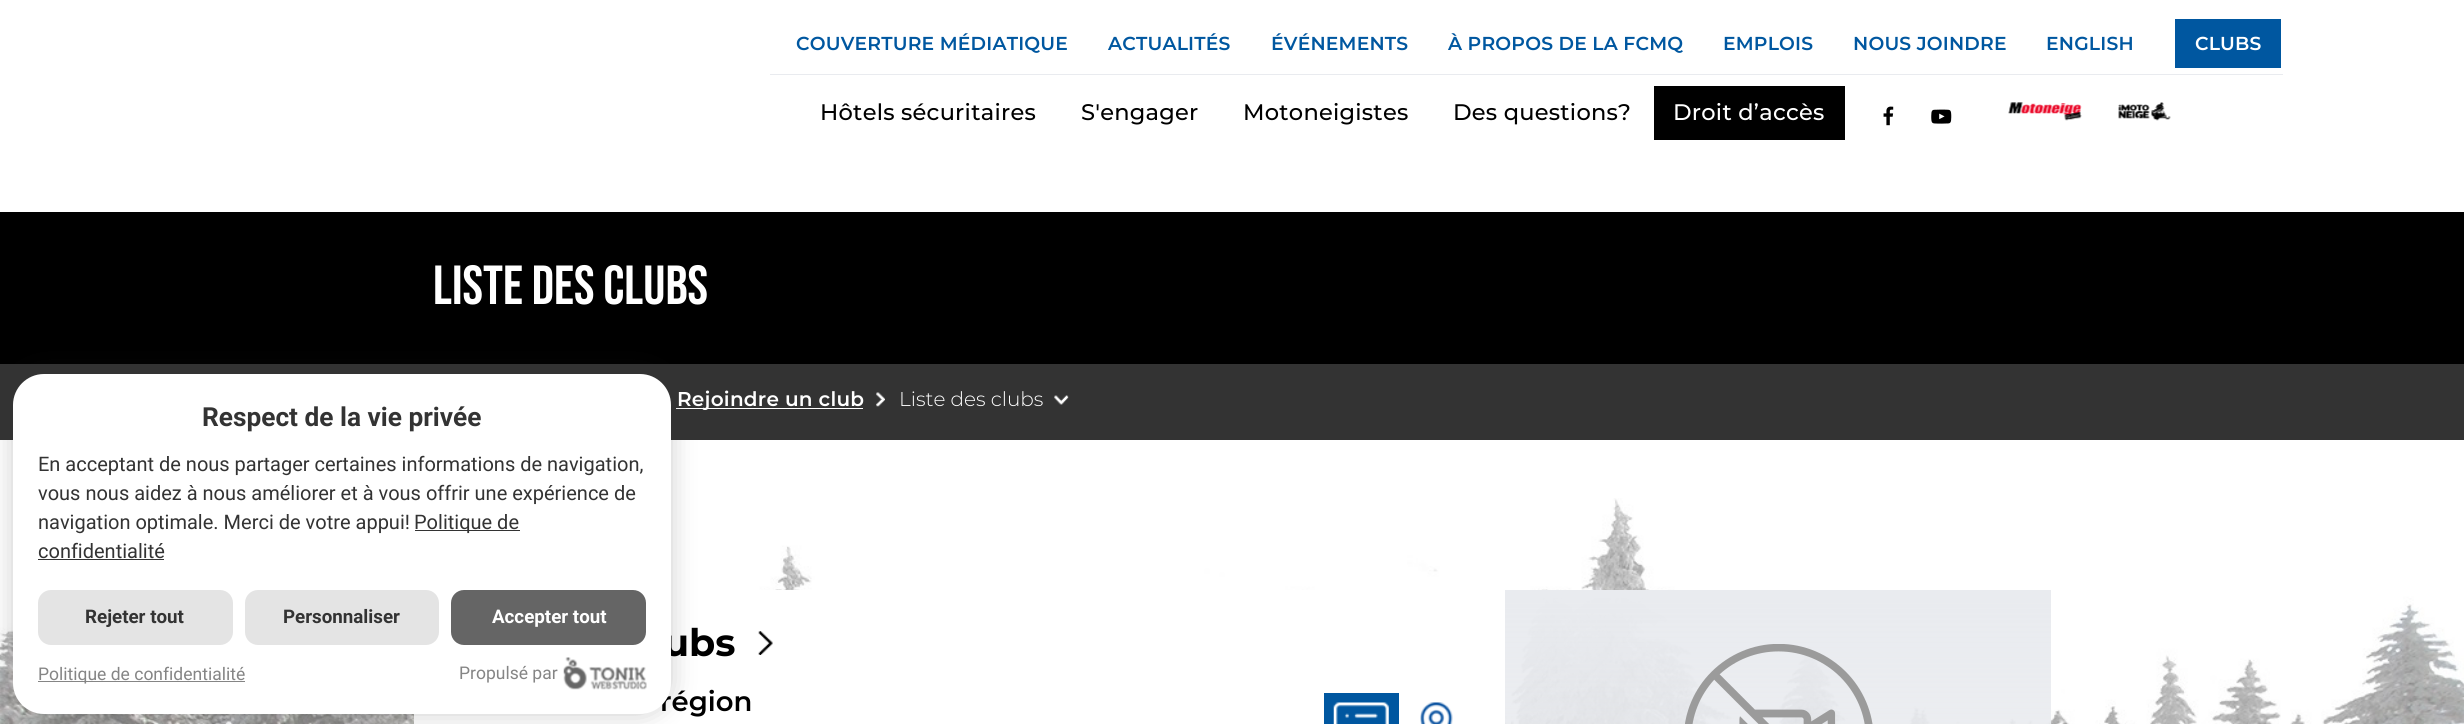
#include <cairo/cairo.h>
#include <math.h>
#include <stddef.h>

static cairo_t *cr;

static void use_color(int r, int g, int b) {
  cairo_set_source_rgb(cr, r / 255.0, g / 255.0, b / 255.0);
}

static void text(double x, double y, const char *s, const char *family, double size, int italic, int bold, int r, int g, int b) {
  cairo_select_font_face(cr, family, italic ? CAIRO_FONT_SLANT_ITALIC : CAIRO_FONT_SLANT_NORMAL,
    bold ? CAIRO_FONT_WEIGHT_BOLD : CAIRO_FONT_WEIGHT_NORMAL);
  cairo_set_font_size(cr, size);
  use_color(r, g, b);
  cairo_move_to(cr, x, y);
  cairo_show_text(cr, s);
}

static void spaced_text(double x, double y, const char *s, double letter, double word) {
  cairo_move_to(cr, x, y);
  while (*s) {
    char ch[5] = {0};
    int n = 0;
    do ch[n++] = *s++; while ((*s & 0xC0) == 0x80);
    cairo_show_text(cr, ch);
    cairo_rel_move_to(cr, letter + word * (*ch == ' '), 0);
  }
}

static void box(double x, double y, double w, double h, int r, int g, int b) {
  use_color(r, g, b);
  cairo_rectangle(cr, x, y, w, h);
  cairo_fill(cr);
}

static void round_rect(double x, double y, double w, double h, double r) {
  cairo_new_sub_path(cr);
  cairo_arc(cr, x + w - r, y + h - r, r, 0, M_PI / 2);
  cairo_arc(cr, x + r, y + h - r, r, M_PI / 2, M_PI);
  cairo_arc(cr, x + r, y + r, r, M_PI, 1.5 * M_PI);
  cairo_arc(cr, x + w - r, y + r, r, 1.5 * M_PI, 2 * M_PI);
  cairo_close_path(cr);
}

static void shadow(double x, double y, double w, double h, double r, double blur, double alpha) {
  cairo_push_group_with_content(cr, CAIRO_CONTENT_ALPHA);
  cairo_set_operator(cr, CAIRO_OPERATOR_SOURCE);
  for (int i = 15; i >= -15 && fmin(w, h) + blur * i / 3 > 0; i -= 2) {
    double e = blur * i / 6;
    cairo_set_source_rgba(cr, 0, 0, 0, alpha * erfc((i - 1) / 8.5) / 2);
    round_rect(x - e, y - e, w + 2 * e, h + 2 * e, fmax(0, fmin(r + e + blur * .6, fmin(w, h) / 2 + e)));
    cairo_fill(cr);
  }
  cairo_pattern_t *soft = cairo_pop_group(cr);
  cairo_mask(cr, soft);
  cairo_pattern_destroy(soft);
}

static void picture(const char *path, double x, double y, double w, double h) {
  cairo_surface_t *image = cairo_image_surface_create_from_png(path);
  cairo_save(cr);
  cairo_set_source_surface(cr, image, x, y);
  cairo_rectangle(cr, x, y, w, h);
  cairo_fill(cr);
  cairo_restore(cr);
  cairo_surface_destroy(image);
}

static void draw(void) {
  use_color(255, 255, 255);
  cairo_paint(cr);
  picture("img_01.png", 0, 498, 2464, 226);
  box(0, 212, 2464, 152, 0, 0, 0);
  box(0, 364, 2464, 76, 51, 51, 51);
  box(676, 408, 187, 1, 255, 255, 255);
  box(414, 590, 1091, 134, 255, 255, 255);
  use_color(51, 51, 51);
  shadow(13, 374, 658, 340, 31, 12.5, 0.25);
  box(770, 74, 1513, 1, 233, 235, 239);
  box(2175, 19, 106, 49, 0, 87, 160);
  box(1654, 86, 191, 54, 0, 0, 0);
  picture("img_03.png", 1883, 106, 11, 20);
  picture("img_04.png", 1931, 109, 21, 15);
  picture("img_05.png", 2008, 102, 74, 19);
  picture("img_06.png", 2118, 102, 53, 19);
  picture("img_07.png", 876, 392, 9, 15);
  picture("img_08.png", 1054, 395, 15, 10);
  picture("img_09.png", 758, 631, 15, 24);
  box(1324, 693, 75, 31, 0, 87, 160);
  picture("img_10.png", 1333, 702, 56, 22);
  picture("img_11.png", 1420, 702, 33, 22);
  picture("img_12.png", 1685, 644, 188, 80);
  cairo_select_font_face(cr, "Montserrat SemiBold", CAIRO_FONT_SLANT_NORMAL, CAIRO_FONT_WEIGHT_NORMAL);
  cairo_set_font_size(cr, 18.75);
  spaced_text(796, 50, "COUVERTURE MÉDIATIQUE", 0.2, 0);
  spaced_text(1108, 50, "ACTUALITÉS", 0.2, 0);
  spaced_text(1271, 50, "ÉVÉNEMENTS", 0.2, 0);
  spaced_text(1448, 50, "À PROPOS DE LA FCMQ", 0.2, 0);
  spaced_text(1723, 50, "EMPLOIS", 0.2, 0);
  spaced_text(1853, 50, "NOUS JOINDRE", 0.2, 0);
  spaced_text(2046, 50, "ENGLISH", 0.2, 0);
  use_color(255, 255, 255);
  spaced_text(2195, 50, "CLUBS", 0.2, 0);
  cairo_select_font_face(cr, "Montserrat Medium", CAIRO_FONT_SLANT_NORMAL, CAIRO_FONT_WEIGHT_NORMAL);
  cairo_set_font_size(cr, 22.5);
  use_color(0, 0, 0);
  spaced_text(820, 120, "Hôtels sécuritaires", 0.25, 0);
  spaced_text(1081, 120, "S'engager", 0.25, 0);
  spaced_text(1243, 120, "Motoneigistes", 0.25, 0);
  spaced_text(1453, 120, "Des questions?", 0.25, 0);
  use_color(255, 255, 255);
  spaced_text(1673, 120, "Droit d’accès", 0.25, 0);
  text(433, 304, "Liste des clubs", "Bebas Neue", 55, 0, 0, 255, 255, 255);
  cairo_select_font_face(cr, "Montserrat SemiBold", CAIRO_FONT_SLANT_NORMAL, CAIRO_FONT_WEIGHT_NORMAL);
  cairo_set_font_size(cr, 20);
  spaced_text(677, 406, "Rejoindre un club", 0.25, 0);
  text(899, 406, "Liste des clubs", "Montserrat Light", 20, 0, 0, 255, 255, 255);
  text(663, 656, "ubs", "Montserrat", 38, 0, 1, 0, 0, 0);
  text(660, 711, "région", "Montserrat SemiBold", 27.5, 0, 0, 0, 0, 0);
  use_color(255, 255, 255);
  round_rect(13, 374, 658, 340, 31);
  cairo_fill(cr);
  picture("img_02.png", 563, 657, 84, 33);
  text(459, 679, "Propulsé par", "Roboto", 17.5, 0, 0, 133, 133, 133);
  box(38, 681, 207, 1, 133, 133, 133);
  text(38, 680, "Politique de confidentialité", "Roboto", 17.5, 0, 0, 133, 133, 133);
  use_color(101, 101, 101);
  round_rect(451, 590, 195, 55, 13);
  cairo_fill(cr);
  text(492, 623, "Accepter tout", "Roboto", 18.75, 0, 1, 255, 255, 255);
  use_color(228, 228, 228);
  round_rect(245, 590, 194, 55, 13);
  cairo_fill(cr);
  text(283, 623, "Personnaliser", "Roboto", 18.75, 0, 1, 51, 51, 51);
  use_color(228, 228, 228);
  round_rect(38, 590, 195, 55, 13);
  cairo_fill(cr);
  text(85, 623, "Rejeter tout", "Roboto", 18.75, 0, 1, 51, 51, 51);
  text(38, 558, "confidentialité", "Roboto", 20, 0, 0, 51, 51, 51);
  box(38, 559, 126, 1, 51, 51, 51);
  box(415, 530, 105, 1, 51, 51, 51);
  text(414, 529, "Politique de", "Roboto", 20, 0, 0, 51, 51, 51);
  text(38, 529, "navigation optimale. Merci de votre appui!", "Roboto", 20, 0, 0, 51, 51, 51);
  text(38, 500, "vous nous aidez à nous améliorer et à vous offrir une expérience de", "Roboto", 20, 0, 0, 51, 51, 51);
  text(38, 471, "En acceptant de nous partager certaines informations de navigation,", "Roboto", 20, 0, 0, 51, 51, 51);
  text(202, 426, "Respect de la vie privée", "Roboto", 26.25, 0, 1, 51, 51, 51);
}

int main(void) {
  cairo_surface_t *surface = cairo_image_surface_create(CAIRO_FORMAT_RGB24, 2464, 724);
  cr = cairo_create(surface);
  cairo_font_options_t *options = cairo_font_options_create();
  cairo_font_options_set_hint_metrics(options, CAIRO_HINT_METRICS_OFF);
  cairo_font_options_set_hint_style(options, CAIRO_HINT_STYLE_NONE);
  cairo_set_font_options(cr, options);
  cairo_set_miter_limit(cr, 4);
  draw();
  cairo_surface_write_to_png(surface, "out.png");
  cairo_font_options_destroy(options);
  cairo_destroy(cr);
  cairo_surface_destroy(surface);
  return 0;
}
